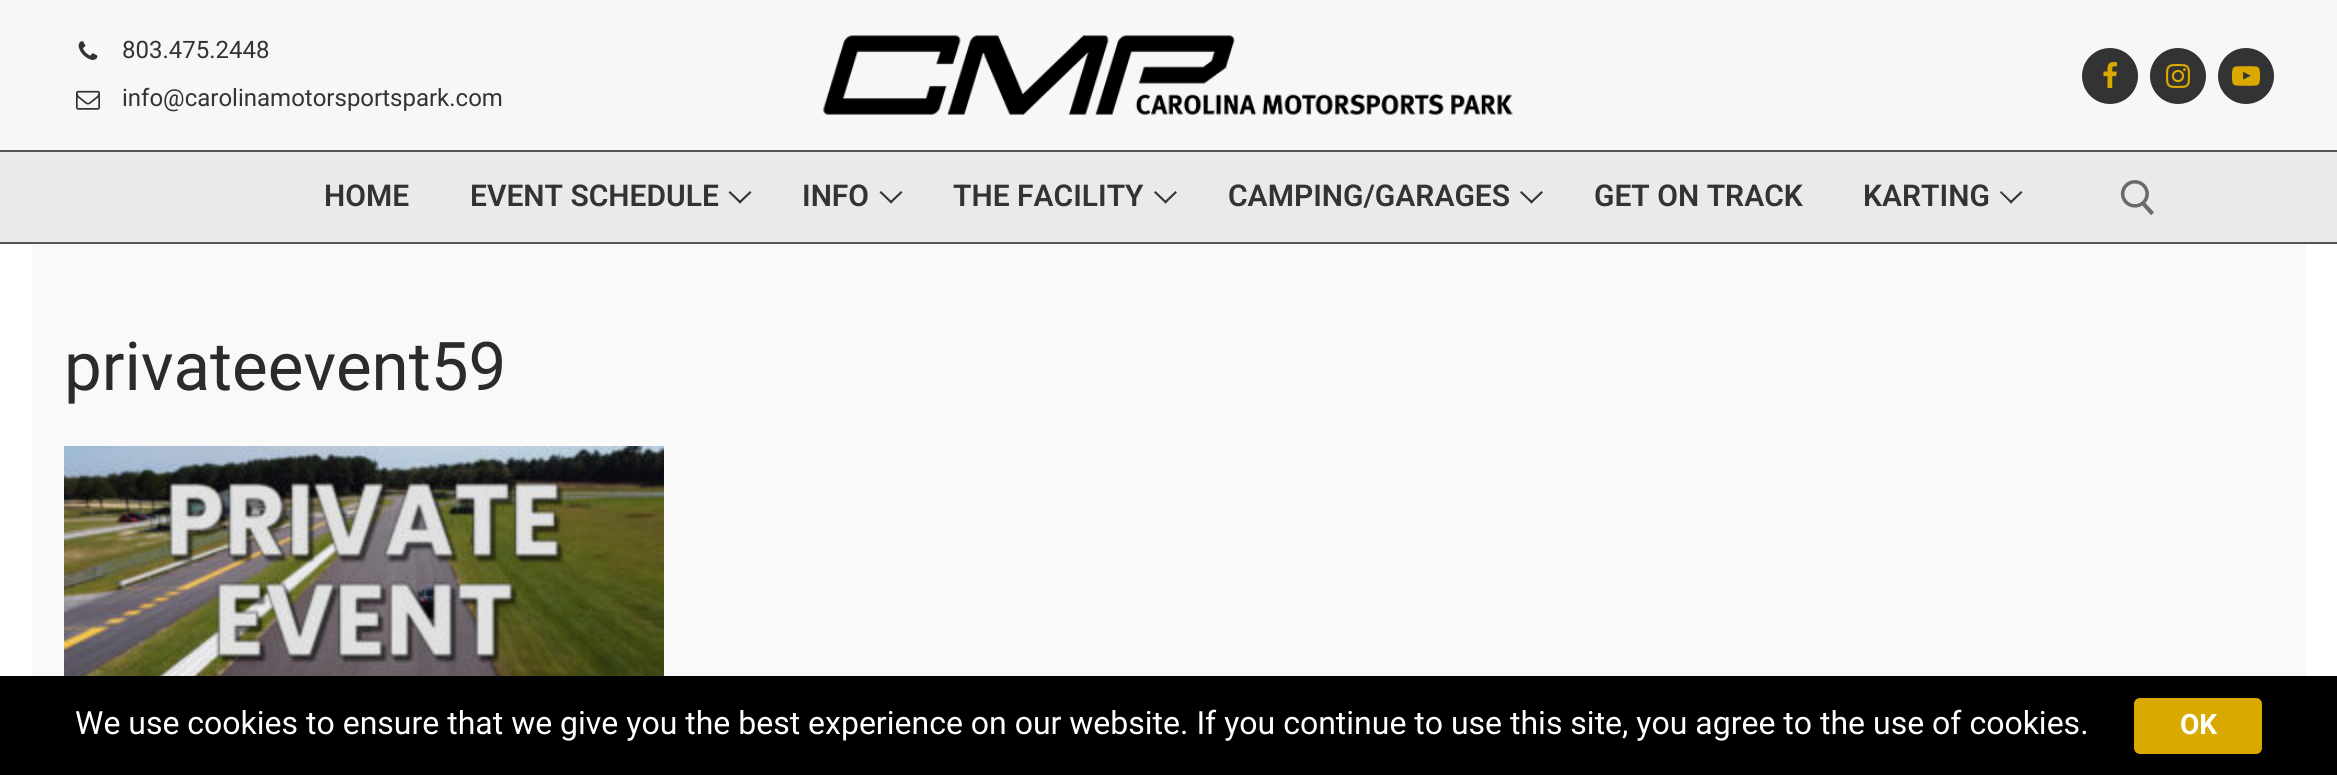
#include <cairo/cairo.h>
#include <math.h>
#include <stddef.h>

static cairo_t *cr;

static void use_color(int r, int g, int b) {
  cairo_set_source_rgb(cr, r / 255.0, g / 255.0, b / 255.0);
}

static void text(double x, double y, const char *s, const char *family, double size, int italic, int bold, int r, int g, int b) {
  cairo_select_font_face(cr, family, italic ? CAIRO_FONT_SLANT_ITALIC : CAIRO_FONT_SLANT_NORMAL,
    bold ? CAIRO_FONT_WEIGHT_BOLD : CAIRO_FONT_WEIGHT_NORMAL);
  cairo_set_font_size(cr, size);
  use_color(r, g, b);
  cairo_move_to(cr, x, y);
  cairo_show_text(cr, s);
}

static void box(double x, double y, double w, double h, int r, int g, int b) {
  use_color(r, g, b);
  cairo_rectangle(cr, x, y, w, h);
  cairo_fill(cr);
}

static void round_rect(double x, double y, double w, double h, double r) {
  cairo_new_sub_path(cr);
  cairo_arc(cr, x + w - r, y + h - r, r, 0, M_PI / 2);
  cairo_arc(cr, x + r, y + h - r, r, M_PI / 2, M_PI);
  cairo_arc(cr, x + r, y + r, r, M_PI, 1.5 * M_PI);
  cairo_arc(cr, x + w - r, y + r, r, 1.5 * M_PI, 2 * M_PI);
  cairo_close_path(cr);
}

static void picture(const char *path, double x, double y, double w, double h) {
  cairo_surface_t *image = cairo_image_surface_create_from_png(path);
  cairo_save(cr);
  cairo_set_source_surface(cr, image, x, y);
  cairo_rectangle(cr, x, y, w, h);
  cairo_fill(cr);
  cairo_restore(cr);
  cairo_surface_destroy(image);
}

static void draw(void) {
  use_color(247, 247, 247);
  cairo_paint(cr);
  box(0, 150, 2337, 2, 85, 85, 85);
  picture("img_01.png", 78, 41, 20, 19);
  picture("img_02.png", 76, 90, 24, 20);
  picture("img_03.png", 823, 35, 690, 80);
  use_color(51, 51, 51);
  cairo_arc(cr, 2110, 76, 28, 0, 2 * M_PI);
  cairo_fill(cr);
  picture("img_04.png", 2103, 62, 14, 26);
  cairo_arc(cr, 2178, 76, 28, 0, 2 * M_PI);
  cairo_fill(cr);
  picture("img_05.png", 2166, 64, 24, 24);
  cairo_arc(cr, 2246, 76, 28, 0, 2 * M_PI);
  cairo_fill(cr);
  picture("img_06.png", 2232, 66, 28, 20);
  box(0, 152, 2337, 90, 234, 234, 234);
  box(0, 242, 2337, 2, 85, 85, 85);
  use_color(51, 51, 51);
  cairo_new_path(cr);
  cairo_move_to(cr, 740, 203.5);
  cairo_line_to(cr, 728.5, 192.5);
  cairo_line_to(cr, 730, 191);
  cairo_line_to(cr, 741.5, 202);
  cairo_close_path(cr);
  cairo_fill(cr);
  cairo_new_path(cr);
  cairo_move_to(cr, 740, 203.5);
  cairo_line_to(cr, 738.5, 202);
  cairo_line_to(cr, 750, 191);
  cairo_line_to(cr, 751.5, 192.5);
  cairo_close_path(cr);
  cairo_fill(cr);
  cairo_new_path(cr);
  cairo_move_to(cr, 891, 203.5);
  cairo_line_to(cr, 879.5, 192.5);
  cairo_line_to(cr, 881, 191);
  cairo_line_to(cr, 892.5, 202);
  cairo_close_path(cr);
  cairo_fill(cr);
  cairo_new_path(cr);
  cairo_move_to(cr, 891, 203.5);
  cairo_line_to(cr, 889.5, 202);
  cairo_line_to(cr, 901, 191);
  cairo_line_to(cr, 902.5, 192.5);
  cairo_close_path(cr);
  cairo_fill(cr);
  cairo_new_path(cr);
  cairo_move_to(cr, 1165.5, 203.5);
  cairo_line_to(cr, 1154, 192.5);
  cairo_line_to(cr, 1155.5, 191);
  cairo_line_to(cr, 1167, 202);
  cairo_close_path(cr);
  cairo_fill(cr);
  cairo_new_path(cr);
  cairo_move_to(cr, 1165.5, 203.5);
  cairo_line_to(cr, 1164, 202);
  cairo_line_to(cr, 1175.5, 191);
  cairo_line_to(cr, 1177, 192.5);
  cairo_close_path(cr);
  cairo_fill(cr);
  cairo_new_path(cr);
  cairo_move_to(cr, 1531.5, 203.5);
  cairo_line_to(cr, 1520, 192.5);
  cairo_line_to(cr, 1521.5, 191);
  cairo_line_to(cr, 1533, 202);
  cairo_close_path(cr);
  cairo_fill(cr);
  cairo_new_path(cr);
  cairo_move_to(cr, 1531.5, 203.5);
  cairo_line_to(cr, 1530, 202);
  cairo_line_to(cr, 1541.5, 191);
  cairo_line_to(cr, 1543, 192.5);
  cairo_close_path(cr);
  cairo_fill(cr);
  cairo_new_path(cr);
  cairo_move_to(cr, 2011, 203.5);
  cairo_line_to(cr, 2000, 192.5);
  cairo_line_to(cr, 2001, 191);
  cairo_line_to(cr, 2012.5, 202);
  cairo_close_path(cr);
  cairo_fill(cr);
  cairo_new_path(cr);
  cairo_move_to(cr, 2011, 203.5);
  cairo_line_to(cr, 2009.5, 202);
  cairo_line_to(cr, 2021, 191);
  cairo_line_to(cr, 2022.5, 192.5);
  cairo_close_path(cr);
  cairo_fill(cr);
  picture("img_07.png", 2120, 180, 34, 35);
  box(0, 244, 2337, 432, 255, 255, 255);
  box(32, 244, 2274, 432, 249, 249, 249);
  picture("img_08.png", 64, 446, 600, 230);
  box(0, 676, 2337, 99, 0, 0, 0);
  use_color(218, 169, 0);
  round_rect(2134, 698, 128, 56, 6);
  cairo_fill(cr);
  text(122, 58, "803.475.2448", "Roboto", 24, 0, 0, 51, 51, 51);
  text(122, 106, "info@carolinamotorsportspark.com", "Roboto", 24, 0, 0, 51, 51, 51);
  text(324, 206, "HOME", "Roboto SemiBold", 30, 0, 0, 51, 51, 51);
  text(470, 206, "EVENT SCHEDULE", "Roboto SemiBold", 30, 0, 0, 51, 51, 51);
  text(802, 206, "INFO", "Roboto SemiBold", 30, 0, 0, 51, 51, 51);
  text(953, 206, "THE FACILITY", "Roboto SemiBold", 30, 0, 0, 51, 51, 51);
  text(1228, 206, "CAMPING/GARAGES", "Roboto SemiBold", 30, 0, 0, 51, 51, 51);
  text(1594, 206, "GET ON TRACK", "Roboto SemiBold", 30, 0, 0, 51, 51, 51);
  text(1863, 206, "KARTING", "Roboto SemiBold", 30, 0, 0, 51, 51, 51);
  text(64, 390, "privateevent59", "Roboto", 67.25, 0, 0, 43, 43, 43);
  text(75, 734, "We use cookies to ensure that we give you the best experience on our website. If you continue to use this site, you agree to the use of cookies.", "Roboto", 32, 0, 0, 255, 255, 255);
  text(2180, 734, "OK", "Roboto", 28, 0, 1, 255, 255, 255);
}

int main(void) {
  cairo_surface_t *surface = cairo_image_surface_create(CAIRO_FORMAT_RGB24, 2337, 775);
  cr = cairo_create(surface);
  cairo_font_options_t *options = cairo_font_options_create();
  cairo_font_options_set_hint_metrics(options, CAIRO_HINT_METRICS_OFF);
  cairo_font_options_set_hint_style(options, CAIRO_HINT_STYLE_NONE);
  cairo_set_font_options(cr, options);
  cairo_set_miter_limit(cr, 4);
  draw();
  cairo_surface_write_to_png(surface, "out.png");
  cairo_font_options_destroy(options);
  cairo_destroy(cr);
  cairo_surface_destroy(surface);
  return 0;
}
